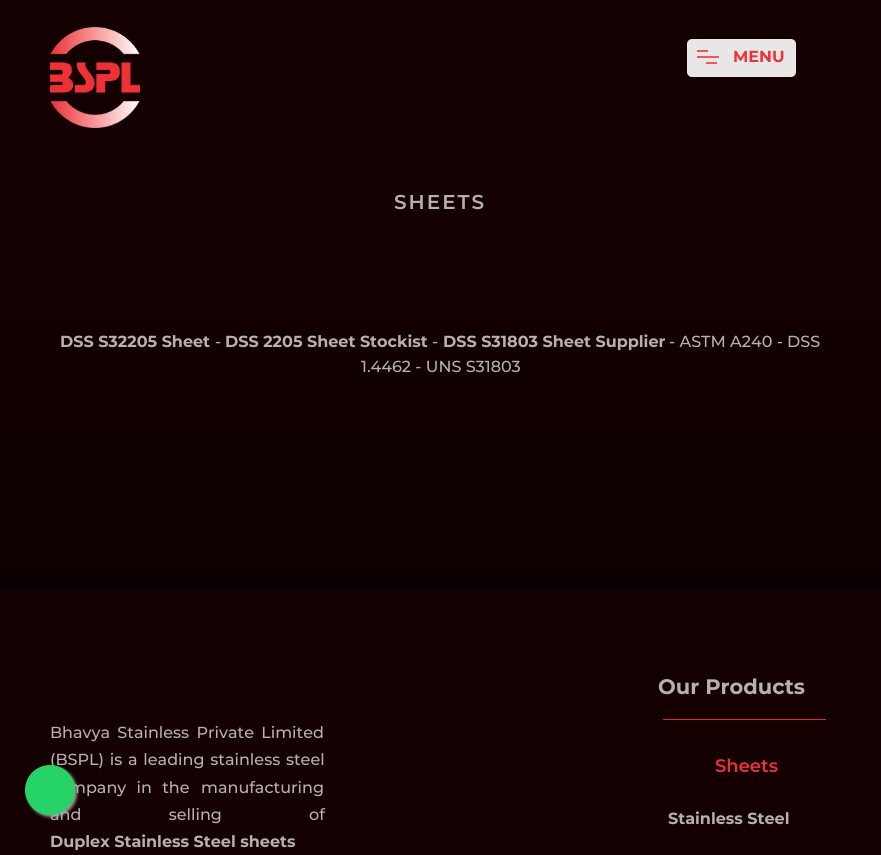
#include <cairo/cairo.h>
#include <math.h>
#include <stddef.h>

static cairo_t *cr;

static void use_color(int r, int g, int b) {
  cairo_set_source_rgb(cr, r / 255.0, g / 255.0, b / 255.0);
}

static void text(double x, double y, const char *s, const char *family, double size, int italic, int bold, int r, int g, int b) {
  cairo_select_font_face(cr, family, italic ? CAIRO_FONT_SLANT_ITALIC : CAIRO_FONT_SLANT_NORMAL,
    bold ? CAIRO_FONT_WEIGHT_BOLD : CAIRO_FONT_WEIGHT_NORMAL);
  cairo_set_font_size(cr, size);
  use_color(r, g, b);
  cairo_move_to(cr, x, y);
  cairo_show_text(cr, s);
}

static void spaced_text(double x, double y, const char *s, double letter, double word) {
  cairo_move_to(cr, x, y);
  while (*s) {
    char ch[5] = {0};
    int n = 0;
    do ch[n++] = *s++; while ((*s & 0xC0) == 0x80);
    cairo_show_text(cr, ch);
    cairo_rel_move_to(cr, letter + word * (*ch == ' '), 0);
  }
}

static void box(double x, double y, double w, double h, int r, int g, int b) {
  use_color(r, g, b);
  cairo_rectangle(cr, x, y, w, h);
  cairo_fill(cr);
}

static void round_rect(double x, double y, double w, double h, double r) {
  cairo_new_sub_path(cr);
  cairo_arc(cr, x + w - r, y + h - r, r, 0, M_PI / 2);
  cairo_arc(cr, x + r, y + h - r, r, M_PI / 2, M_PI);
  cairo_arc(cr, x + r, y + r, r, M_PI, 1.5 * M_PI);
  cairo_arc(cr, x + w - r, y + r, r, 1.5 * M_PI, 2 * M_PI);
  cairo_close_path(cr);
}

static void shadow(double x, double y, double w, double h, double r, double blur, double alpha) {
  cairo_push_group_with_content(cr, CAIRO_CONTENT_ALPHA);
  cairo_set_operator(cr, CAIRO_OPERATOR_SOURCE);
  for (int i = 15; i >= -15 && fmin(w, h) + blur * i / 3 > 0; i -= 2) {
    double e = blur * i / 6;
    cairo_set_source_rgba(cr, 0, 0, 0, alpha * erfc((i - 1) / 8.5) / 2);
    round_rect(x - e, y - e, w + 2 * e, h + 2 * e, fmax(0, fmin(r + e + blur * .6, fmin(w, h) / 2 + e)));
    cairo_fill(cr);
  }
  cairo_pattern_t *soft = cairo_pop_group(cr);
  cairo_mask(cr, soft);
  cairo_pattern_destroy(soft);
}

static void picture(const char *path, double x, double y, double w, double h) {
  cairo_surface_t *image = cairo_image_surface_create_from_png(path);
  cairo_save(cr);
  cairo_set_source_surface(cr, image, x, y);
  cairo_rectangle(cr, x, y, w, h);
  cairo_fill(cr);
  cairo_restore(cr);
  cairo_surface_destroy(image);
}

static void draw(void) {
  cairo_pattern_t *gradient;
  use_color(21, 0, 1);
  cairo_paint(cr);
  picture("img_01.png", 50, 27, 90, 101);
  use_color(232, 230, 230);
  round_rect(687, 39, 109, 38, 5);
  cairo_fill(cr);
  box(697, 50, 11, 2, 240, 85, 89);
  box(697, 56, 22, 2, 240, 85, 89);
  box(706, 62, 11, 2, 240, 85, 89);
  gradient = cairo_pattern_create_linear(441, 236, 441, 590);
  cairo_pattern_add_color_stop_rgba(gradient, 0, 0.082, 0, 0.004, 1);
  cairo_pattern_add_color_stop_rgba(gradient, 1, 0.043, 0, 0.004, 1);
  cairo_set_source(cr, gradient);
  cairo_pattern_destroy(gradient);
  cairo_rectangle(cr, 0, 325, 881, 265);
  cairo_fill(cr);
  box(663, 719, 163, 1, 214, 44, 49);
  use_color(153, 153, 153);
  shadow(27, 767, 50, 50, 25, 1.5, 1);
  text(733, 62, "MENU", "Montserrat", 16, 0, 1, 237, 50, 55);
  cairo_select_font_face(cr, "Montserrat SemiBold", CAIRO_FONT_SLANT_NORMAL, CAIRO_FONT_WEIGHT_NORMAL);
  cairo_set_font_size(cr, 20);
  use_color(182, 176, 176);
  spaced_text(394, 209, "SHEETS", 2, 0);
  text(60, 347, "DSS S32205 Sheet", "Montserrat", 16, 0, 1, 182, 176, 176);
  text(215, 347, "-", "Montserrat Medium", 16, 0, 0, 182, 176, 176);
  text(225, 347, "DSS 2205 Sheet Stockist", "Montserrat", 16, 0, 1, 182, 176, 176);
  text(432, 347, "-", "Montserrat Medium", 16, 0, 0, 182, 176, 176);
  text(443, 347, "DSS S31803 Sheet Supplier", "Montserrat", 16, 0, 1, 182, 176, 176);
  text(669, 347, "- ASTM A240 - DSS", "Montserrat Medium", 16, 0, 0, 182, 176, 176);
  text(361, 372, "1.4462 - UNS S31803", "Montserrat Medium", 16, 0, 0, 182, 176, 176);
  spaced_text(50, 738, "Bhavya Stainless Private Limited", 0, 3);
  spaced_text(50, 765, "(BSPL) is a leading stainless steel", 0, 1.5);
  spaced_text(69, 793, "mpany in the", 0, 6);
  text(201, 793, "manufacturing", "Montserrat Medium", 16, 0, 0, 182, 176, 176);
  spaced_text(50, 820, "and selling of", 0, 83);
  text(50, 847, "Duplex Stainless Steel sheets", "Montserrat", 16, 0, 1, 182, 176, 176);
  text(658, 694, "Our Products", "Montserrat", 21, 0, 1, 182, 176, 176);
  text(715, 772, "Sheets", "Montserrat SemiBold", 18, 0, 0, 237, 50, 55);
  text(668, 824, "Stainless Steel", "Montserrat", 16, 0, 1, 182, 176, 176);
  use_color(37, 211, 102);
  cairo_new_path(cr);
  cairo_arc(cr, 50, 790, 25, 0, 2 * M_PI);
  cairo_fill(cr);
}

int main(void) {
  cairo_surface_t *surface = cairo_image_surface_create(CAIRO_FORMAT_RGB24, 881, 855);
  cr = cairo_create(surface);
  cairo_font_options_t *options = cairo_font_options_create();
  cairo_font_options_set_hint_metrics(options, CAIRO_HINT_METRICS_OFF);
  cairo_font_options_set_hint_style(options, CAIRO_HINT_STYLE_NONE);
  cairo_set_font_options(cr, options);
  cairo_set_miter_limit(cr, 4);
  draw();
  cairo_surface_write_to_png(surface, "out.png");
  cairo_font_options_destroy(options);
  cairo_destroy(cr);
  cairo_surface_destroy(surface);
  return 0;
}
